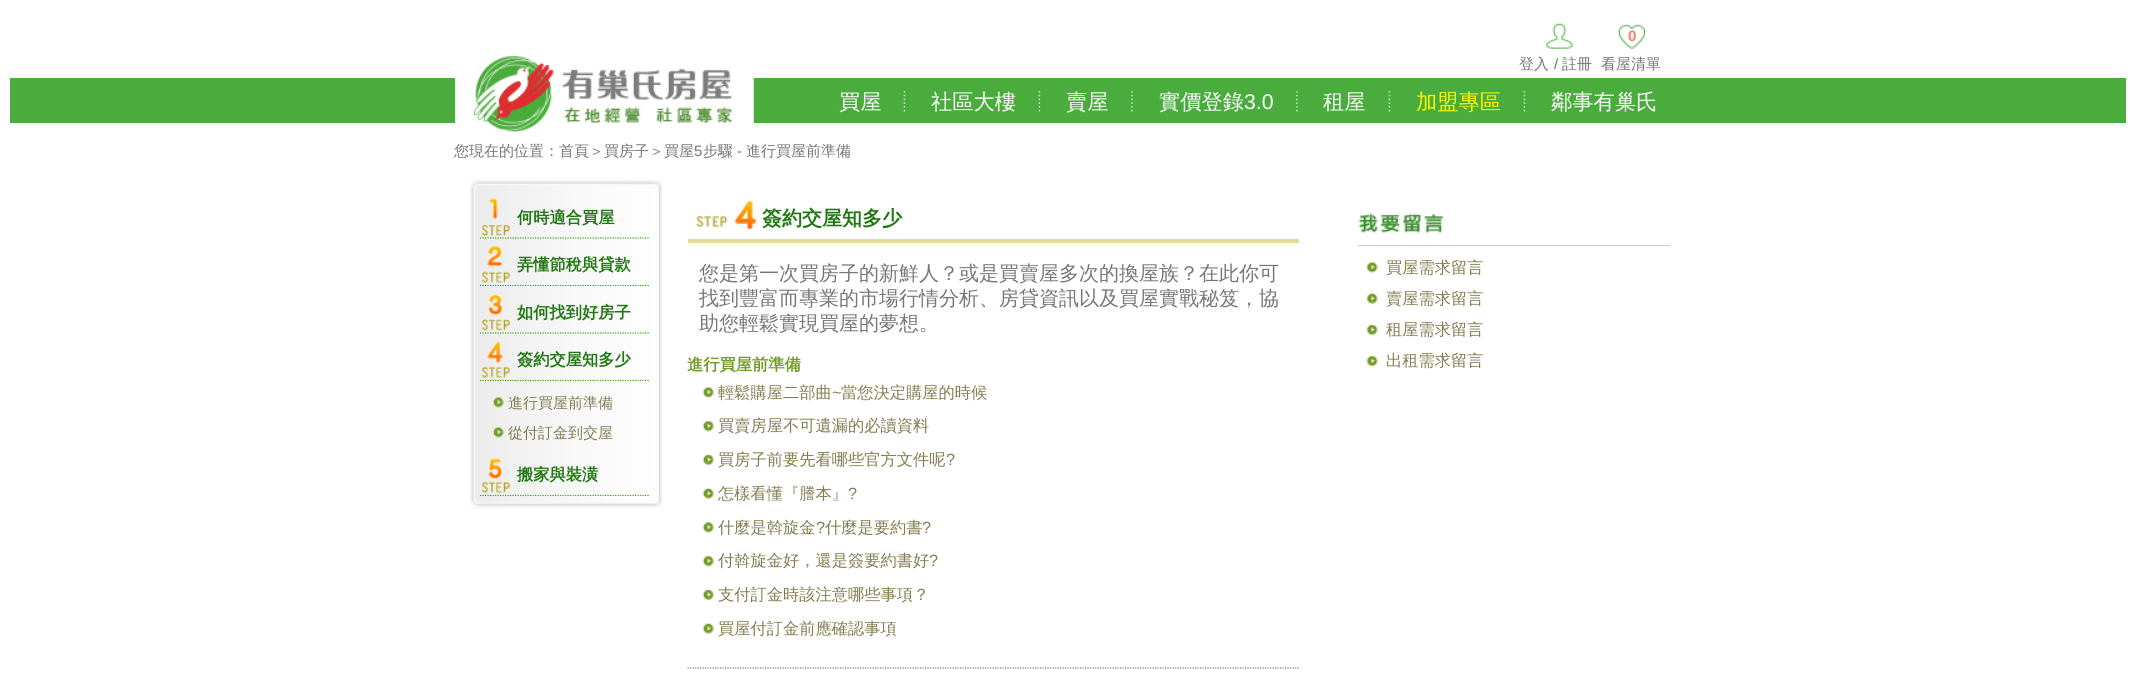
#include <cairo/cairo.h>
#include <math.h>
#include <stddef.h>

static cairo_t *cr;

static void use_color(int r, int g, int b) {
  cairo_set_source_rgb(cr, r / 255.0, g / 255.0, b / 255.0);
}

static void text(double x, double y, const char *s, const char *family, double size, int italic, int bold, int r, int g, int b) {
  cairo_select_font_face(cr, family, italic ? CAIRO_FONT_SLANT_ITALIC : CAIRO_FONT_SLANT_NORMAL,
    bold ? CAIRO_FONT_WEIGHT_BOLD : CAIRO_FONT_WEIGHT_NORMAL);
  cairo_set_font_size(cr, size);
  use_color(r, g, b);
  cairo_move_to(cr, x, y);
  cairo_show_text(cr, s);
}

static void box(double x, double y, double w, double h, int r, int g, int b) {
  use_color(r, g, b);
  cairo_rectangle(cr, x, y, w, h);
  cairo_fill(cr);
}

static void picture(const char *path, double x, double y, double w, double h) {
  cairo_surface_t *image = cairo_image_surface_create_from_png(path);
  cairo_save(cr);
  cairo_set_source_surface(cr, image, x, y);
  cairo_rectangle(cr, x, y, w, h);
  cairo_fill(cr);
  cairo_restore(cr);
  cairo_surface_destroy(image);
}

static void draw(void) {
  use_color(255, 255, 255);
  cairo_paint(cr);
  picture("img_01.png", 1546, 23, 27, 26);
  picture("img_02.png", 1618, 24, 27, 25);
  box(10, 78, 2116, 45, 74, 172, 61);
  picture("img_03.png", 455, 56, 299, 76);
  picture("img_04.png", 903, 91, 3, 21);
  picture("img_04.png", 1038, 91, 3, 21);
  picture("img_05.png", 1131, 91, 2, 21);
  picture("img_05.png", 1296, 91, 2, 21);
  picture("img_04.png", 1388, 91, 3, 21);
  picture("img_04.png", 1523, 91, 3, 21);
  picture("img_06.png", 470, 178, 193, 331);
  picture("img_07.png", 470, 179, 192, 9);
  cairo_new_path(cr);
  cairo_move_to(cr, 480, 238);
  cairo_line_to(cr, 649, 238);
  use_color(66, 162, 19);
  cairo_set_line_width(cr, 1.2);
  cairo_set_dash(cr, (double[]){1.25, 1.25}, 2, 0);
  cairo_stroke(cr);
  picture("img_08.png", 481, 198, 30, 39);
  cairo_new_path(cr);
  cairo_move_to(cr, 480, 285.5);
  cairo_line_to(cr, 649, 285.5);
  cairo_stroke(cr);
  picture("img_09.png", 481, 246, 30, 37);
  cairo_new_path(cr);
  cairo_move_to(cr, 480, 333);
  cairo_line_to(cr, 649, 333);
  cairo_stroke(cr);
  picture("img_10.png", 481, 294, 30, 37);
  cairo_new_path(cr);
  cairo_move_to(cr, 480, 380.5);
  cairo_line_to(cr, 649, 380.5);
  cairo_stroke(cr);
  picture("img_11.png", 481, 342, 30, 36);
  picture("img_12.png", 492, 396, 12, 12);
  picture("img_12.png", 492, 426, 12, 12);
  cairo_new_path(cr);
  cairo_move_to(cr, 480, 495.5);
  cairo_line_to(cr, 649, 495.5);
  cairo_stroke(cr);
  picture("img_13.png", 481, 458, 30, 35);
  picture("img_14.png", 470, 496, 192, 13);
  picture("img_15.png", 694, 197, 63, 32);
  box(688, 239, 611, 4, 223, 220, 150);
  picture("img_16.png", 702, 387, 12, 11);
  picture("img_17.png", 702, 420, 12, 12);
  picture("img_18.png", 702, 454, 12, 11);
  picture("img_19.png", 702, 488, 12, 11);
  picture("img_16.png", 702, 522, 12, 11);
  picture("img_17.png", 702, 555, 12, 12);
  picture("img_18.png", 702, 589, 12, 11);
  picture("img_19.png", 702, 623, 12, 11);
  cairo_new_path(cr);
  cairo_move_to(cr, 687.5, 668);
  cairo_line_to(cr, 1299, 668);
  use_color(118, 118, 118);
  cairo_stroke(cr);
  picture("img_20.png", 1358, 213, 86, 20);
  box(1358, 245, 312, 1, 204, 204, 204);
  picture("img_21.png", 1366, 261, 12, 12);
  picture("img_22.png", 1366, 293, 12, 11);
  picture("img_23.png", 1366, 324, 12, 11);
  picture("img_24.png", 1366, 355, 12, 12);
  text(1519, 69, "登入", "WenQuanYi Zen Hei Medium", 15, 0, 0, 118, 118, 118);
  text(1554, 69, "/", "Liberation Sans", 15, 0, 0, 51, 153, 51);
  text(1562, 69, "註冊", "WenQuanYi Zen Hei Medium", 15, 0, 0, 118, 118, 118);
  text(1628, 41, "0", "Liberation Sans", 15, 0, 1, 254, 124, 114);
  text(1601, 69, "看屋清單", "WenQuanYi Zen Hei Medium", 15, 0, 0, 118, 118, 118);
  text(839, 109, "買屋", "WenQuanYi Zen Hei Medium", 21.25, 0, 0, 255, 255, 255);
  text(931, 109, "社區大樓", "WenQuanYi Zen Hei Medium", 21.25, 0, 0, 255, 255, 255);
  text(1066, 109, "賣屋", "WenQuanYi Zen Hei Medium", 21.25, 0, 0, 255, 255, 255);
  text(1159, 109, "實價登錄", "WenQuanYi Zen Hei Medium", 21.25, 0, 0, 255, 255, 255);
  text(1244, 109, "3.0", "Liberation Sans", 21.25, 0, 0, 255, 255, 255);
  text(1323, 109, "租屋", "WenQuanYi Zen Hei Medium", 21.25, 0, 0, 255, 255, 255);
  text(1416, 109, "加盟專區", "WenQuanYi Zen Hei Medium", 21.25, 0, 0, 255, 246, 0);
  text(1551, 109, "鄰事有巢氏", "WenQuanYi Zen Hei Medium", 21.25, 0, 0, 255, 255, 255);
  text(454, 156, "您現在的位置：首頁＞買房子＞買屋", "WenQuanYi Zen Hei Medium", 15, 0, 0, 118, 118, 118);
  text(694, 156, "5", "Liberation Sans", 15, 0, 0, 118, 118, 118);
  text(703, 156, "步驟", "WenQuanYi Zen Hei Medium", 15, 0, 0, 118, 118, 118);
  text(737, 156, "-", "Liberation Sans", 15, 0, 0, 118, 118, 118);
  text(746, 156, "進行買屋前準備", "WenQuanYi Zen Hei Medium", 15, 0, 0, 118, 118, 118);
  text(517, 223, "何時適合買屋", "WenQuanYi Zen Hei", 16.25, 0, 1, 31, 119, 16);
  text(517, 270, "弄懂節稅與貸款", "WenQuanYi Zen Hei", 16.25, 0, 1, 31, 119, 16);
  text(517, 318, "如何找到好房子", "WenQuanYi Zen Hei", 16.25, 0, 1, 31, 119, 16);
  text(517, 365, "簽約交屋知多少", "WenQuanYi Zen Hei", 16.25, 0, 1, 31, 119, 16);
  text(508, 408, "進行買屋前準備", "WenQuanYi Zen Hei Medium", 15, 0, 0, 131, 124, 81);
  text(508, 438, "從付訂金到交屋", "WenQuanYi Zen Hei Medium", 15, 0, 0, 131, 124, 81);
  text(517, 480, "搬家與裝潢", "WenQuanYi Zen Hei", 16.25, 0, 1, 31, 119, 16);
  text(762, 225, "簽約交屋知多少", "WenQuanYi Zen Hei", 20, 0, 1, 31, 119, 16);
  text(699, 280, "您是第一次買房子的新鮮人？或是買賣屋多次的換屋族？在此你可", "WenQuanYi Zen Hei Medium", 20, 0, 0, 118, 118, 118);
  text(699, 305, "找到豐富而專業的市場行情分析、房貸資訊以及買屋實戰秘笈，協", "WenQuanYi Zen Hei Medium", 20, 0, 0, 118, 118, 118);
  text(699, 330, "助您輕鬆實現買屋的夢想。", "WenQuanYi Zen Hei Medium", 20, 0, 0, 118, 118, 118);
  text(687, 370, "進行買屋前準備", "WenQuanYi Zen Hei", 16.25, 0, 1, 114, 155, 40);
  text(718, 398, "輕鬆購屋二部曲", "WenQuanYi Zen Hei Medium", 16.25, 0, 0, 131, 124, 81);
  text(832, 398, "~", "Liberation Sans", 16.25, 0, 0, 131, 124, 81);
  text(841, 398, "當您決定購屋的時候", "WenQuanYi Zen Hei Medium", 16.25, 0, 0, 131, 124, 81);
  text(718, 431, "買賣房屋不可遺漏的必讀資料", "WenQuanYi Zen Hei Medium", 16.25, 0, 0, 131, 124, 81);
  text(718, 465, "買房子前要先看哪些官方文件呢", "WenQuanYi Zen Hei Medium", 16.25, 0, 0, 131, 124, 81);
  text(946, 465, "?", "Liberation Sans", 16.25, 0, 0, 131, 124, 81);
  text(718, 499, "怎樣看懂『謄本』", "WenQuanYi Zen Hei Medium", 16.25, 0, 0, 131, 124, 81);
  text(848, 499, "?", "Liberation Sans", 16.25, 0, 0, 131, 124, 81);
  text(718, 533, "什麼是斡旋金", "WenQuanYi Zen Hei Medium", 16.25, 0, 0, 131, 124, 81);
  text(816, 533, "?", "Liberation Sans", 16.25, 0, 0, 131, 124, 81);
  text(825, 533, "什麼是要約書", "WenQuanYi Zen Hei Medium", 16.25, 0, 0, 131, 124, 81);
  text(922, 533, "?", "Liberation Sans", 16.25, 0, 0, 131, 124, 81);
  text(718, 566, "付斡旋金好，還是簽要約書好", "WenQuanYi Zen Hei Medium", 16.25, 0, 0, 131, 124, 81);
  text(929, 566, "?", "Liberation Sans", 16.25, 0, 0, 131, 124, 81);
  text(718, 600, "支付訂金時該注意哪些事項？", "WenQuanYi Zen Hei Medium", 16.25, 0, 0, 131, 124, 81);
  text(718, 634, "買屋付訂金前應確認事項", "WenQuanYi Zen Hei Medium", 16.25, 0, 0, 131, 124, 81);
  text(1386, 273, "買屋需求留言", "WenQuanYi Zen Hei Medium", 16.25, 0, 0, 131, 124, 81);
  text(1386, 304, "賣屋需求留言", "WenQuanYi Zen Hei Medium", 16.25, 0, 0, 131, 124, 81);
  text(1386, 335, "租屋需求留言", "WenQuanYi Zen Hei Medium", 16.25, 0, 0, 131, 124, 81);
  text(1386, 366, "出租需求留言", "WenQuanYi Zen Hei Medium", 16.25, 0, 0, 131, 124, 81);
}

int main(void) {
  cairo_surface_t *surface = cairo_image_surface_create(CAIRO_FORMAT_RGB24, 2136, 692);
  cr = cairo_create(surface);
  cairo_font_options_t *options = cairo_font_options_create();
  cairo_font_options_set_hint_metrics(options, CAIRO_HINT_METRICS_OFF);
  cairo_font_options_set_hint_style(options, CAIRO_HINT_STYLE_NONE);
  cairo_set_font_options(cr, options);
  cairo_set_miter_limit(cr, 4);
  draw();
  cairo_surface_write_to_png(surface, "out.png");
  cairo_font_options_destroy(options);
  cairo_destroy(cr);
  cairo_surface_destroy(surface);
  return 0;
}
